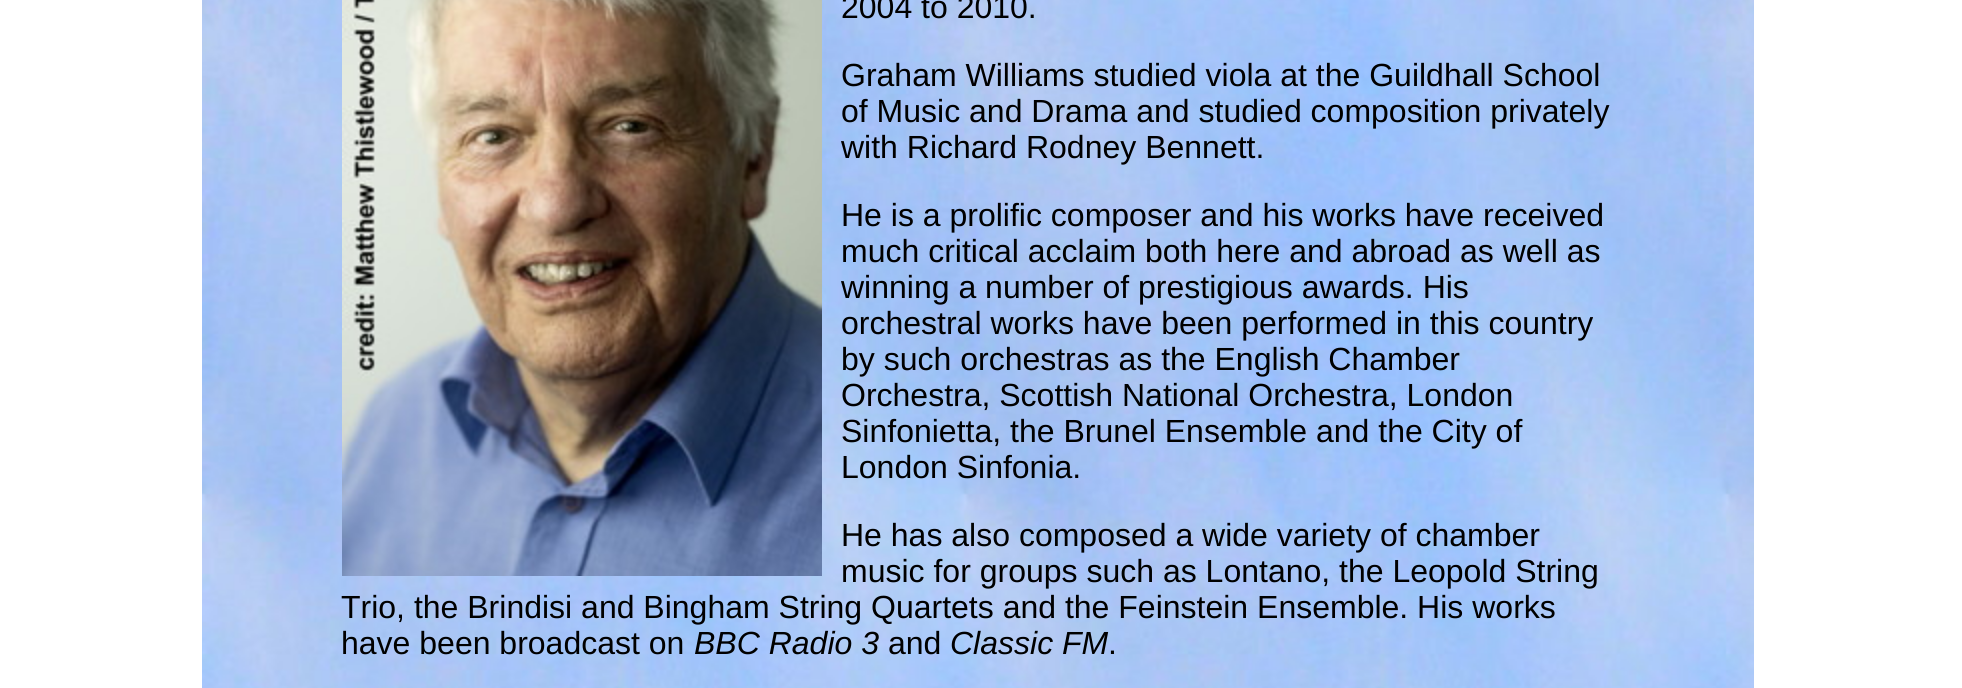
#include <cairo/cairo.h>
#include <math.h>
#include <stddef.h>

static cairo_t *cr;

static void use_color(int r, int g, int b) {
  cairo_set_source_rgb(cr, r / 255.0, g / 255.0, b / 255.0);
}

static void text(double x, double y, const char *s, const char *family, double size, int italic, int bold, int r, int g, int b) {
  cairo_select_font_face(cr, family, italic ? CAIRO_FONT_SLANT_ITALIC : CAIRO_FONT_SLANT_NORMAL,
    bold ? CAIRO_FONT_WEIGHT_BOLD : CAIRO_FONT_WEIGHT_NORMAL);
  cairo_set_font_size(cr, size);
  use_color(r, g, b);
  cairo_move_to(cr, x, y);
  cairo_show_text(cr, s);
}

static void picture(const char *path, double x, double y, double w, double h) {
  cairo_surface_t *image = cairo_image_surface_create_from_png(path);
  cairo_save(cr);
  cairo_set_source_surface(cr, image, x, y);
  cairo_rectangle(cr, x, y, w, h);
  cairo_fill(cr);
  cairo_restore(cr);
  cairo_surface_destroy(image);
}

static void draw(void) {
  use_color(255, 255, 255);
  cairo_paint(cr);
  picture("img_01.png", 202, 0, 1552, 688);
  picture("img_02.png", 342, 0, 480, 576);
  text(841, 18, "2004 to 2010.", "Liberation Sans", 32, 0, 0, 0, 0, 0);
  text(841, 86, "Graham Williams studied viola at the Guildhall School", "Liberation Sans", 32, 0, 0, 0, 0, 0);
  text(841, 122, "of Music and Drama and studied composition privately", "Liberation Sans", 32, 0, 0, 0, 0, 0);
  text(841, 158, "with Richard Rodney Bennett.", "Liberation Sans", 32, 0, 0, 0, 0, 0);
  text(841, 226, "He is a prolific composer and his works have received", "Liberation Sans", 32, 0, 0, 0, 0, 0);
  text(841, 262, "much critical acclaim both here and abroad as well as", "Liberation Sans", 32, 0, 0, 0, 0, 0);
  text(841, 298, "winning a number of prestigious awards. His", "Liberation Sans", 32, 0, 0, 0, 0, 0);
  text(841, 334, "orchestral works have been performed in this country", "Liberation Sans", 32, 0, 0, 0, 0, 0);
  text(841, 370, "by such orchestras as the English Chamber", "Liberation Sans", 32, 0, 0, 0, 0, 0);
  text(841, 406, "Orchestra, Scottish National Orchestra, London", "Liberation Sans", 32, 0, 0, 0, 0, 0);
  text(841, 442, "Sinfonietta, the Brunel Ensemble and the City of", "Liberation Sans", 32, 0, 0, 0, 0, 0);
  text(841, 478, "London Sinfonia.", "Liberation Sans", 32, 0, 0, 0, 0, 0);
  text(841, 546, "He has also composed a wide variety of chamber", "Liberation Sans", 32, 0, 0, 0, 0, 0);
  text(841, 582, "music for groups such as Lontano, the Leopold String", "Liberation Sans", 32, 0, 0, 0, 0, 0);
  text(341, 618, "Trio, the Brindisi and Bingham String Quartets and the Feinstein Ensemble. His works", "Liberation Sans", 32, 0, 0, 0, 0, 0);
  text(341, 654, "have been broadcast on", "Liberation Sans", 32, 0, 0, 0, 0, 0);
  text(694, 654, "BBC Radio 3", "Liberation Sans", 32, 1, 0, 0, 0, 0);
  text(888, 654, "and", "Liberation Sans", 32, 0, 0, 0, 0, 0);
  text(950, 654, "Classic FM", "Liberation Sans", 32, 1, 0, 0, 0, 0);
  text(1108, 654, ".", "Liberation Sans", 32, 0, 0, 0, 0, 0);
}

int main(void) {
  cairo_surface_t *surface = cairo_image_surface_create(CAIRO_FORMAT_RGB24, 1962, 688);
  cr = cairo_create(surface);
  cairo_font_options_t *options = cairo_font_options_create();
  cairo_font_options_set_hint_metrics(options, CAIRO_HINT_METRICS_OFF);
  cairo_font_options_set_hint_style(options, CAIRO_HINT_STYLE_NONE);
  cairo_set_font_options(cr, options);
  cairo_set_miter_limit(cr, 4);
  draw();
  cairo_surface_write_to_png(surface, "out.png");
  cairo_font_options_destroy(options);
  cairo_destroy(cr);
  cairo_surface_destroy(surface);
  return 0;
}
